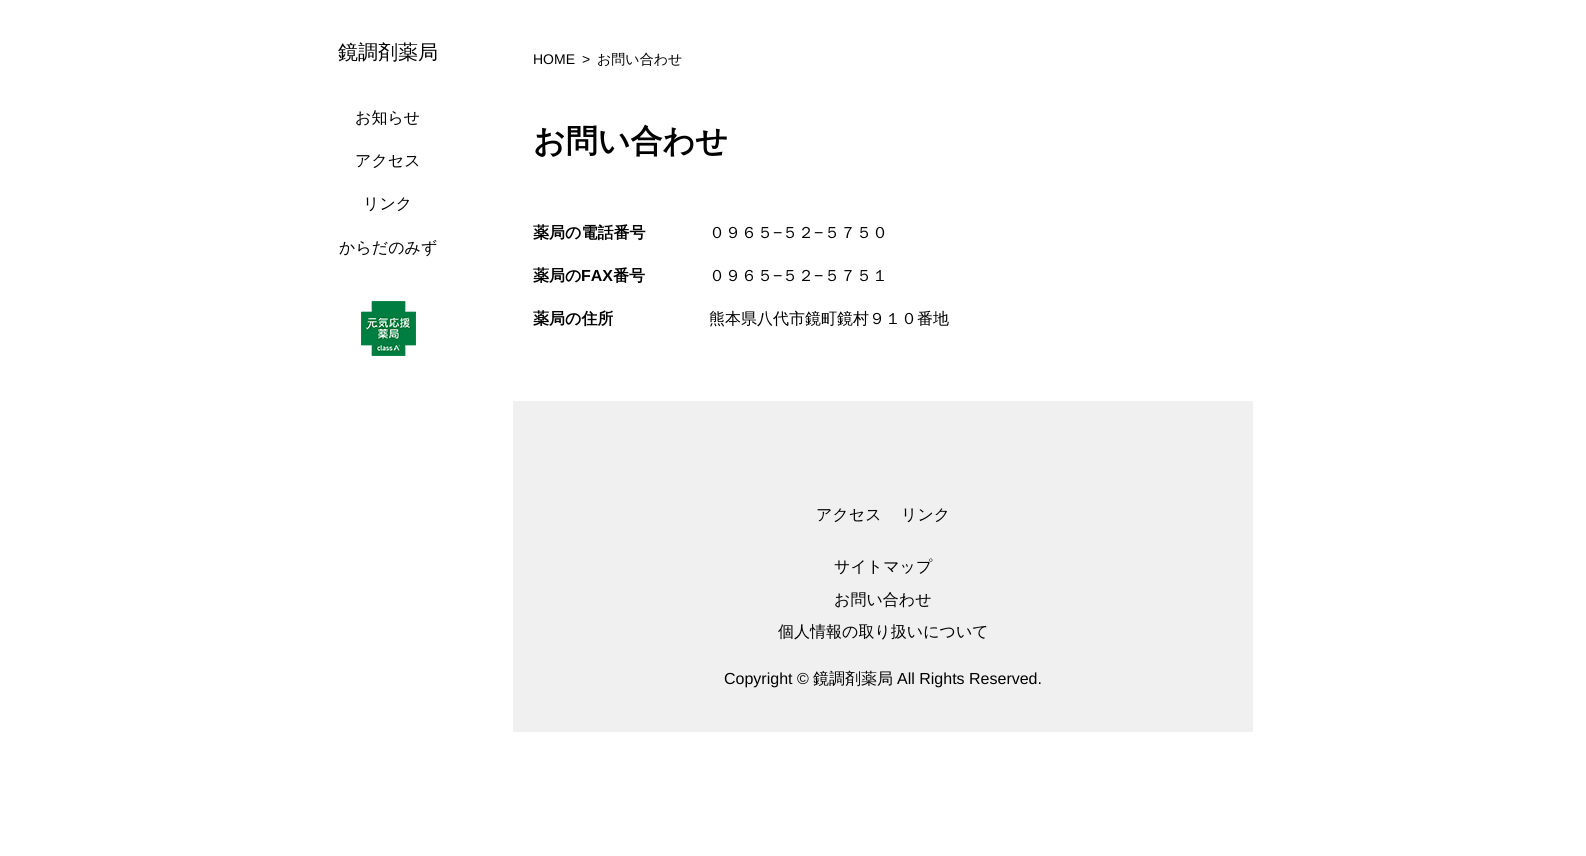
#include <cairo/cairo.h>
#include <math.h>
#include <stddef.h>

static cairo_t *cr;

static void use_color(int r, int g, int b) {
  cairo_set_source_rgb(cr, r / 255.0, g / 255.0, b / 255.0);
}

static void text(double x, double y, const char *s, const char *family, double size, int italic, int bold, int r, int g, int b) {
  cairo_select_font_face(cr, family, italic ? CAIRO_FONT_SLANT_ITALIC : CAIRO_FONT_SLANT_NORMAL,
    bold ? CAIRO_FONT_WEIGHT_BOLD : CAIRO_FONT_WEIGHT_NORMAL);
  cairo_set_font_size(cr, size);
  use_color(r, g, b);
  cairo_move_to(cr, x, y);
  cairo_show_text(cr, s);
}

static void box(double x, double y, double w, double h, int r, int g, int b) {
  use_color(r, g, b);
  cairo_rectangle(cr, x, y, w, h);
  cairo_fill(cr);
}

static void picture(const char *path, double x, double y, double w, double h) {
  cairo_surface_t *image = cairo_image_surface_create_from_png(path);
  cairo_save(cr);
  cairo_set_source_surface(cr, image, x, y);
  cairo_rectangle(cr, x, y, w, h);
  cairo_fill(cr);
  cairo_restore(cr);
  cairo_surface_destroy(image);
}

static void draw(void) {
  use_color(255, 255, 255);
  cairo_paint(cr);
  picture("img_01.png", 361, 301, 55, 55);
  box(513, 401, 740, 331, 240, 240, 240);
  text(338, 59, "鏡調剤薬局", "WenQuanYi Zen Hei Medium", 20, 0, 0, 0, 0, 0);
  text(355, 123, "お知らせ", "WenQuanYi Zen Hei Medium", 16, 0, 0, 0, 0, 0);
  text(355, 166, "アクセス", "WenQuanYi Zen Hei Medium", 16, 0, 0, 0, 0, 0);
  text(363, 209, "リンク", "WenQuanYi Zen Hei Medium", 16, 0, 0, 0, 0, 0);
  text(339, 253, "からだのみず", "WenQuanYi Zen Hei Medium", 16, 0, 0, 0, 0, 0);
  text(533, 64, "HOME", "Liberation Sans", 14, 0, 0, 0, 0, 0);
  text(582, 64, ">", "Liberation Sans", 14, 0, 0, 0, 0, 0);
  text(597, 64, "お問い合わせ", "WenQuanYi Zen Hei Medium", 14, 0, 0, 0, 0, 0);
  text(533, 152, "お問い合わせ", "WenQuanYi Zen Hei", 32, 0, 1, 0, 0, 0);
  text(533, 238, "薬局の電話番号", "WenQuanYi Zen Hei", 16, 0, 1, 0, 0, 0);
  text(709, 238, "０９６５", "WenQuanYi Zen Hei Medium", 16, 0, 0, 0, 0, 0);
  text(773, 238, "−", "Liberation Sans", 16, 0, 0, 0, 0, 0);
  text(782, 238, "５２", "WenQuanYi Zen Hei Medium", 16, 0, 0, 0, 0, 0);
  text(814, 238, "−", "Liberation Sans", 16, 0, 0, 0, 0, 0);
  text(824, 238, "５７５０", "WenQuanYi Zen Hei Medium", 16, 0, 0, 0, 0, 0);
  text(533, 281, "薬局の", "WenQuanYi Zen Hei", 16, 0, 1, 0, 0, 0);
  text(581, 281, "FAX", "Liberation Sans", 16, 0, 1, 0, 0, 0);
  text(613, 281, "番号", "WenQuanYi Zen Hei", 16, 0, 1, 0, 0, 0);
  text(709, 281, "０９６５", "WenQuanYi Zen Hei Medium", 16, 0, 0, 0, 0, 0);
  text(773, 281, "−", "Liberation Sans", 16, 0, 0, 0, 0, 0);
  text(782, 281, "５２", "WenQuanYi Zen Hei Medium", 16, 0, 0, 0, 0, 0);
  text(814, 281, "−", "Liberation Sans", 16, 0, 0, 0, 0, 0);
  text(824, 281, "５７５１", "WenQuanYi Zen Hei Medium", 16, 0, 0, 0, 0, 0);
  text(533, 324, "薬局の住所", "WenQuanYi Zen Hei", 16, 0, 1, 0, 0, 0);
  text(709, 324, "熊本県八代市鏡町鏡村９１０番地", "WenQuanYi Zen Hei Medium", 16, 0, 0, 0, 0, 0);
  text(816, 520, "アクセス", "WenQuanYi Zen Hei Medium", 16, 0, 0, 0, 0, 0);
  text(901, 520, "リンク", "WenQuanYi Zen Hei Medium", 16, 0, 0, 0, 0, 0);
  text(834, 572, "サイトマップ", "WenQuanYi Zen Hei Medium", 16, 0, 0, 0, 0, 0);
  text(834, 605, "お問い合わせ", "WenQuanYi Zen Hei Medium", 16, 0, 0, 0, 0, 0);
  text(778, 637, "個人情報の取り扱いについて", "WenQuanYi Zen Hei Medium", 16, 0, 0, 0, 0, 0);
  text(724, 684, "Copyright ©", "Liberation Sans", 16, 0, 0, 0, 0, 0);
  text(813, 684, "鏡調剤薬局", "WenQuanYi Zen Hei Medium", 16, 0, 0, 0, 0, 0);
  text(897, 684, "All Rights Reserved.", "Liberation Sans", 16, 0, 0, 0, 0, 0);
}

int main(void) {
  cairo_surface_t *surface = cairo_image_surface_create(CAIRO_FORMAT_RGB24, 1586, 856);
  cr = cairo_create(surface);
  cairo_font_options_t *options = cairo_font_options_create();
  cairo_font_options_set_hint_metrics(options, CAIRO_HINT_METRICS_OFF);
  cairo_font_options_set_hint_style(options, CAIRO_HINT_STYLE_NONE);
  cairo_set_font_options(cr, options);
  cairo_set_miter_limit(cr, 4);
  draw();
  cairo_surface_write_to_png(surface, "out.png");
  cairo_font_options_destroy(options);
  cairo_destroy(cr);
  cairo_surface_destroy(surface);
  return 0;
}
